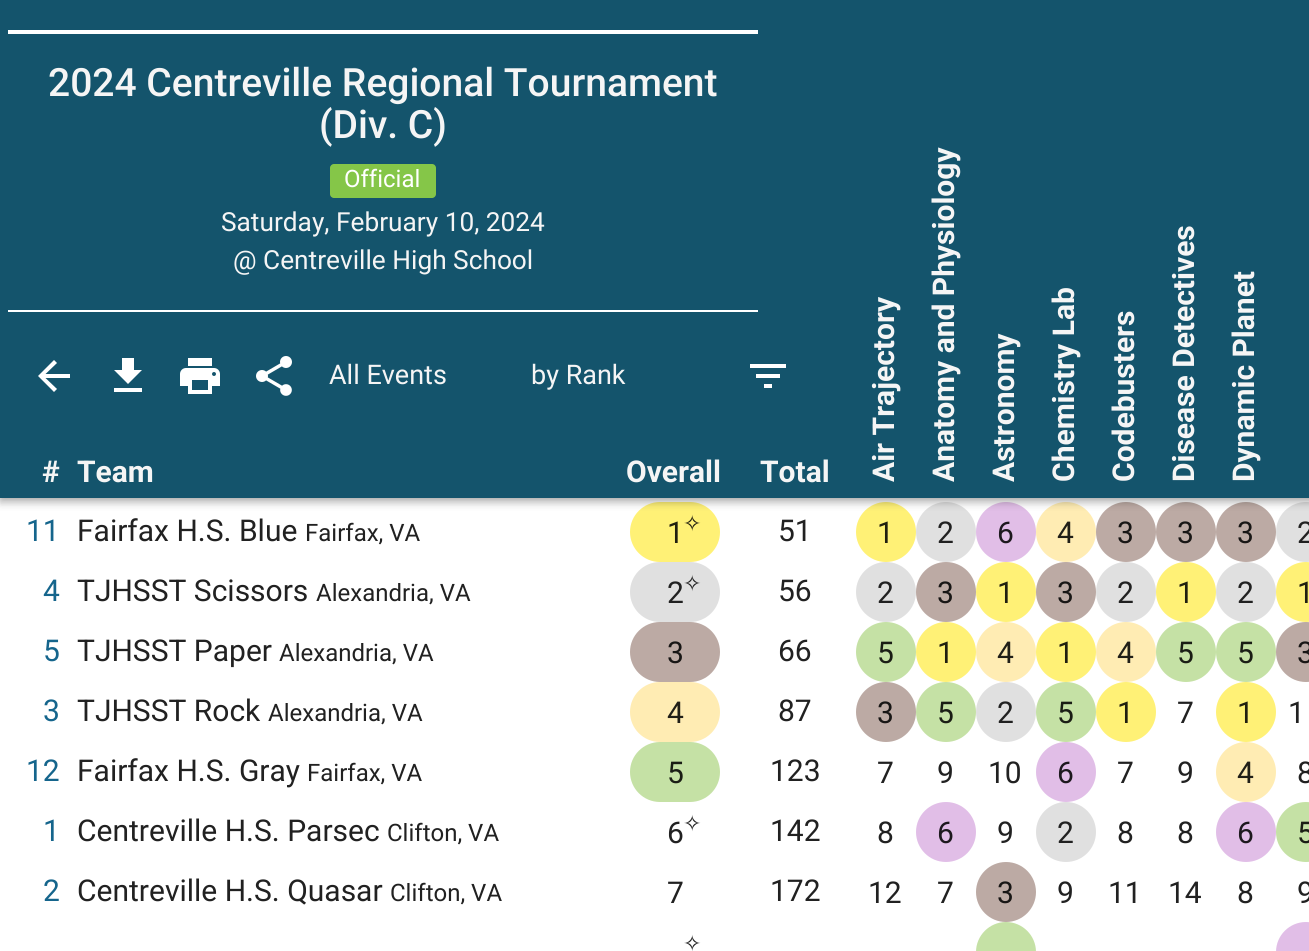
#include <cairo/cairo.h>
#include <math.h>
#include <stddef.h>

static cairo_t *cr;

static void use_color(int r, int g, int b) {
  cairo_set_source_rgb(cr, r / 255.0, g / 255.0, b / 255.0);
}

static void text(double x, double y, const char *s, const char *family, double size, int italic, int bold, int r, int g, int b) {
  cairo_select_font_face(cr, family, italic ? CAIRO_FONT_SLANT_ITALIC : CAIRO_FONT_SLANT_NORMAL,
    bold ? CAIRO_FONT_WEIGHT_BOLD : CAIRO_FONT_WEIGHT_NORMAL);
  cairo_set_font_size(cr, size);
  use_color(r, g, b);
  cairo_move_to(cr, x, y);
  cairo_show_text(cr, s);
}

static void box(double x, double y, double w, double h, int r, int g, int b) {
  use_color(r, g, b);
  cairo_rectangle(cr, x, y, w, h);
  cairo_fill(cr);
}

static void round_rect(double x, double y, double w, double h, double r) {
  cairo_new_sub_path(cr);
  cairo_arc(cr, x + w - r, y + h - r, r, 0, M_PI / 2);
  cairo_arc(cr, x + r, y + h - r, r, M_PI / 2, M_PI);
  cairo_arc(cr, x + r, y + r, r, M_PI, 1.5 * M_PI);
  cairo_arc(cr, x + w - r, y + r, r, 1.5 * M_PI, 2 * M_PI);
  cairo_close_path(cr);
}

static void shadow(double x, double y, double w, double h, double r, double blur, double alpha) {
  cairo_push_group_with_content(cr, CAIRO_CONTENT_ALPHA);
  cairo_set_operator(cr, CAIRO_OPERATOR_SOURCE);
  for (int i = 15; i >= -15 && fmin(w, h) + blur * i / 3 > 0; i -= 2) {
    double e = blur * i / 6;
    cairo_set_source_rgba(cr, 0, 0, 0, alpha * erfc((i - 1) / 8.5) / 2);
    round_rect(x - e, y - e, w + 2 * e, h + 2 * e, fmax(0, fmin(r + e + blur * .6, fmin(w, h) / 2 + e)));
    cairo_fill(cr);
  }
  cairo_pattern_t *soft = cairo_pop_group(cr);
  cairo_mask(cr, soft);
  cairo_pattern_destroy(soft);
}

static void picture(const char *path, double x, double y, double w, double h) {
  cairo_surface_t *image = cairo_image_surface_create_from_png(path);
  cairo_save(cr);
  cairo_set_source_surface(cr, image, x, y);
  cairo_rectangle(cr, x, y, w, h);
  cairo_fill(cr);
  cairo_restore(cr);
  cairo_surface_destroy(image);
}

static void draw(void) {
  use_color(255, 255, 255);
  cairo_paint(cr);
  use_color(255, 241, 118);
  round_rect(630, 502, 90, 60, 30);
  cairo_fill(cr);
  cairo_arc(cr, 886, 532, 30, 0, 2 * M_PI);
  cairo_fill(cr);
  use_color(224, 224, 224);
  cairo_arc(cr, 946, 532, 30, 0, 2 * M_PI);
  cairo_fill(cr);
  use_color(225, 190, 231);
  cairo_arc(cr, 1006, 532, 30, 0, 2 * M_PI);
  cairo_fill(cr);
  use_color(255, 236, 179);
  cairo_arc(cr, 1066, 532, 30, 0, 2 * M_PI);
  cairo_fill(cr);
  use_color(188, 170, 164);
  cairo_arc(cr, 1126, 532, 30, 0, 2 * M_PI);
  cairo_fill(cr);
  cairo_arc(cr, 1186, 532, 30, 0, 2 * M_PI);
  cairo_fill(cr);
  cairo_arc(cr, 1246, 532, 30, 0, 2 * M_PI);
  cairo_fill(cr);
  use_color(224, 224, 224);
  cairo_arc(cr, 1306, 532, 30, 0, 2 * M_PI);
  cairo_fill(cr);
  use_color(0, 0, 0);
  shadow(0, 2, 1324, 498, 0, 5, 0.2);
  shadow(0, 6, 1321, 498, 0, 4, 0.12);
  shadow(0, 0, 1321, 498, 0, 4, 0.14);
  box(0, 0, 1309, 498, 20, 84, 108);
  box(8, 30, 750, 4, 255, 255, 255);
  box(8, 310, 750, 2, 255, 255, 255);
  use_color(133, 198, 72);
  round_rect(330, 164, 106, 34, 4);
  cairo_fill(cr);
  use_color(255, 255, 255);
  cairo_new_path(cr);
  cairo_move_to(cr, 70, 374);
  cairo_line_to(cr, 45.5, 374);
  cairo_line_to(cr, 57, 363);
  cairo_line_to(cr, 54, 360);
  cairo_line_to(cr, 38, 376);
  cairo_line_to(cr, 54, 392);
  cairo_line_to(cr, 57, 389);
  cairo_line_to(cr, 45.5, 378);
  cairo_line_to(cr, 70, 378);
  cairo_close_path(cr);
  cairo_fill(cr);
  cairo_new_path(cr);
  cairo_move_to(cr, 142, 370);
  cairo_line_to(cr, 134, 370);
  cairo_line_to(cr, 134, 358);
  cairo_line_to(cr, 122, 358);
  cairo_line_to(cr, 122, 370);
  cairo_line_to(cr, 114, 370);
  cairo_line_to(cr, 128, 384);
  cairo_close_path(cr);
  cairo_move_to(cr, 114, 388);
  cairo_line_to(cr, 114, 392);
  cairo_line_to(cr, 142, 392);
  cairo_line_to(cr, 142, 388);
  cairo_close_path(cr);
  cairo_fill(cr);
  picture("img_01.png", 180, 358, 40, 36);
  picture("img_02.png", 256, 356, 36, 40);
  cairo_new_path(cr);
  cairo_move_to(cr, 764, 388);
  cairo_line_to(cr, 772, 388);
  cairo_line_to(cr, 772, 384);
  cairo_line_to(cr, 764, 384);
  cairo_close_path(cr);
  cairo_move_to(cr, 750, 364);
  cairo_line_to(cr, 750, 368);
  cairo_line_to(cr, 786, 368);
  cairo_line_to(cr, 786, 364);
  cairo_close_path(cr);
  cairo_move_to(cr, 756, 378);
  cairo_line_to(cr, 780, 378);
  cairo_line_to(cr, 780, 374);
  cairo_line_to(cr, 756, 374);
  cairo_close_path(cr);
  cairo_fill(cr);
  use_color(224, 224, 224);
  round_rect(630, 562, 90, 60, 30);
  cairo_fill(cr);
  cairo_arc(cr, 886, 592, 30, 0, 2 * M_PI);
  cairo_fill(cr);
  use_color(188, 170, 164);
  cairo_arc(cr, 946, 592, 30, 0, 2 * M_PI);
  cairo_fill(cr);
  use_color(255, 241, 118);
  cairo_arc(cr, 1006, 592, 30, 0, 2 * M_PI);
  cairo_fill(cr);
  use_color(188, 170, 164);
  cairo_arc(cr, 1066, 592, 30, 0, 2 * M_PI);
  cairo_fill(cr);
  use_color(224, 224, 224);
  cairo_arc(cr, 1126, 592, 30, 0, 2 * M_PI);
  cairo_fill(cr);
  use_color(255, 241, 118);
  cairo_arc(cr, 1186, 592, 30, 0, 2 * M_PI);
  cairo_fill(cr);
  use_color(224, 224, 224);
  cairo_arc(cr, 1246, 592, 30, 0, 2 * M_PI);
  cairo_fill(cr);
  use_color(255, 241, 118);
  cairo_arc(cr, 1306, 592, 30, 0, 2 * M_PI);
  cairo_fill(cr);
  use_color(188, 170, 164);
  round_rect(630, 622, 90, 60, 30);
  cairo_fill(cr);
  use_color(197, 225, 165);
  cairo_arc(cr, 886, 652, 30, 0, 2 * M_PI);
  cairo_fill(cr);
  use_color(255, 241, 118);
  cairo_arc(cr, 946, 652, 30, 0, 2 * M_PI);
  cairo_fill(cr);
  use_color(255, 236, 179);
  cairo_arc(cr, 1006, 652, 30, 0, 2 * M_PI);
  cairo_fill(cr);
  use_color(255, 241, 118);
  cairo_arc(cr, 1066, 652, 30, 0, 2 * M_PI);
  cairo_fill(cr);
  use_color(255, 236, 179);
  cairo_arc(cr, 1126, 652, 30, 0, 2 * M_PI);
  cairo_fill(cr);
  use_color(197, 225, 165);
  cairo_arc(cr, 1186, 652, 30, 0, 2 * M_PI);
  cairo_fill(cr);
  cairo_arc(cr, 1246, 652, 30, 0, 2 * M_PI);
  cairo_fill(cr);
  use_color(188, 170, 164);
  cairo_arc(cr, 1306, 652, 30, 0, 2 * M_PI);
  cairo_fill(cr);
  use_color(255, 236, 179);
  round_rect(630, 682, 90, 60, 30);
  cairo_fill(cr);
  use_color(188, 170, 164);
  cairo_arc(cr, 886, 712, 30, 0, 2 * M_PI);
  cairo_fill(cr);
  use_color(197, 225, 165);
  cairo_arc(cr, 946, 712, 30, 0, 2 * M_PI);
  cairo_fill(cr);
  use_color(224, 224, 224);
  cairo_arc(cr, 1006, 712, 30, 0, 2 * M_PI);
  cairo_fill(cr);
  use_color(197, 225, 165);
  cairo_arc(cr, 1066, 712, 30, 0, 2 * M_PI);
  cairo_fill(cr);
  use_color(255, 241, 118);
  cairo_arc(cr, 1126, 712, 30, 0, 2 * M_PI);
  cairo_fill(cr);
  cairo_arc(cr, 1246, 712, 30, 0, 2 * M_PI);
  cairo_fill(cr);
  use_color(197, 225, 165);
  round_rect(630, 742, 90, 60, 30);
  cairo_fill(cr);
  use_color(225, 190, 231);
  cairo_arc(cr, 1066, 772, 30, 0, 2 * M_PI);
  cairo_fill(cr);
  use_color(255, 236, 179);
  cairo_arc(cr, 1246, 772, 30, 0, 2 * M_PI);
  cairo_fill(cr);
  use_color(225, 190, 231);
  cairo_arc(cr, 946, 832, 30, 0, 2 * M_PI);
  cairo_fill(cr);
  use_color(224, 224, 224);
  cairo_arc(cr, 1066, 832, 30, 0, 2 * M_PI);
  cairo_fill(cr);
  use_color(225, 190, 231);
  cairo_arc(cr, 1246, 832, 30, 0, 2 * M_PI);
  cairo_fill(cr);
  use_color(197, 225, 165);
  cairo_arc(cr, 1306, 832, 30, 0, 2 * M_PI);
  cairo_fill(cr);
  use_color(188, 170, 164);
  cairo_arc(cr, 1006, 892, 30, 0, 2 * M_PI);
  cairo_fill(cr);
  use_color(197, 225, 165);
  cairo_new_path(cr);
  cairo_move_to(cr, 1006, 922);
  cairo_curve_to(cr, 1022.5, 922, 1036, 935.5, 1036, 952);
  cairo_line_to(cr, 976, 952);
  cairo_curve_to(cr, 976, 935.5, 989.5, 922, 1006, 922);
  cairo_close_path(cr);
  cairo_fill(cr);
  use_color(225, 190, 231);
  round_rect(1276, 922, 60, 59, 30);
  cairo_fill(cr);
  text(48, 96, "2024 Centreville Regional Tournament", "Roboto Medium", 39, 0, 0, 245, 245, 245);
  text(319, 138, "(Div. C)", "Roboto Medium", 39, 0, 0, 245, 245, 245);
  text(344, 187, "Official", "Roboto", 24, 0, 0, 255, 255, 255);
  text(221, 231, "Saturday, February 10, 2024", "Roboto", 26.25, 0, 0, 245, 245, 245);
  text(233, 269, "@ Centreville High School", "Roboto", 26.25, 0, 0, 245, 245, 245);
  text(329, 384, "All Events", "Roboto", 27, 0, 0, 245, 245, 245);
  text(531, 384, "by Rank", "Roboto", 27, 0, 0, 245, 245, 245);
  text(42, 482, "#", "Roboto", 30, 0, 1, 245, 245, 245);
  text(77, 482, "Team", "Roboto", 30, 0, 1, 245, 245, 245);
  text(626, 482, "Overall", "Roboto", 30, 0, 1, 245, 245, 245);
  text(760, 482, "Total", "Roboto", 30, 0, 1, 245, 245, 245);
  cairo_save(cr);
  cairo_translate(cr, 894, 482);
  cairo_rotate(cr, -90 * M_PI / 180);
  text(0, 0, "Air Trajectory", "Roboto", 30, 0, 1, 245, 245, 245);
  cairo_restore(cr);
  cairo_save(cr);
  cairo_translate(cr, 954, 482);
  cairo_rotate(cr, -90 * M_PI / 180);
  text(0, 0, "Anatomy and Physiology", "Roboto", 30, 0, 1, 245, 245, 245);
  cairo_restore(cr);
  cairo_save(cr);
  cairo_translate(cr, 1014, 482);
  cairo_rotate(cr, -90 * M_PI / 180);
  text(0, 0, "Astronomy", "Roboto", 30, 0, 1, 245, 245, 245);
  cairo_restore(cr);
  cairo_save(cr);
  cairo_translate(cr, 1074, 482);
  cairo_rotate(cr, -90 * M_PI / 180);
  text(0, 0, "Chemistry Lab", "Roboto", 30, 0, 1, 245, 245, 245);
  cairo_restore(cr);
  cairo_save(cr);
  cairo_translate(cr, 1134, 482);
  cairo_rotate(cr, -90 * M_PI / 180);
  text(0, 0, "Codebusters", "Roboto", 30, 0, 1, 245, 245, 245);
  cairo_restore(cr);
  cairo_save(cr);
  cairo_translate(cr, 1194, 482);
  cairo_rotate(cr, -90 * M_PI / 180);
  text(0, 0, "Disease Detectives", "Roboto", 30, 0, 1, 245, 245, 245);
  cairo_restore(cr);
  cairo_save(cr);
  cairo_translate(cr, 1254, 482);
  cairo_rotate(cr, -90 * M_PI / 180);
  text(0, 0, "Dynamic Planet", "Roboto", 30, 0, 1, 245, 245, 245);
  cairo_restore(cr);
  text(26, 541, "11", "Roboto", 30, 0, 0, 21, 101, 140);
  text(77, 541, "Fairfax H.S. Blue", "Roboto", 30, 0, 0, 33, 33, 33);
  text(305, 541, "Fairfax, VA", "Roboto", 24, 0, 0, 33, 33, 33);
  text(667, 543, "1", "Roboto", 30, 0, 0, 33, 31, 15);
  text(683, 531, "✧", "DejaVu Sans", 22, 0, 0, 33, 31, 15);
  text(778, 541, "51", "Roboto", 30, 0, 0, 33, 33, 33);
  text(877, 543, "1", "Roboto", 30, 0, 0, 33, 31, 15);
  text(937, 543, "2", "Roboto", 30, 0, 0, 33, 33, 33);
  text(997, 543, "6", "Roboto", 30, 0, 0, 29, 25, 30);
  text(1057, 543, "4", "Roboto", 30, 0, 0, 33, 31, 23);
  text(1117, 543, "3", "Roboto", 30, 0, 0, 24, 22, 21);
  text(1177, 543, "3", "Roboto", 30, 0, 0, 24, 22, 21);
  text(1237, 543, "3", "Roboto", 30, 0, 0, 24, 22, 21);
  text(1297, 543, "2", "Roboto", 30, 0, 0, 33, 33, 33);
  text(43, 601, "4", "Roboto", 30, 0, 0, 21, 101, 140);
  text(77, 601, "TJHSST Scissors", "Roboto", 30, 0, 0, 33, 33, 33);
  text(316, 601, "Alexandria, VA", "Roboto", 24, 0, 0, 33, 33, 33);
  text(667, 603, "2", "Roboto", 30, 0, 0, 33, 33, 33);
  text(683, 591, "✧", "DejaVu Sans", 22, 0, 0, 33, 33, 33);
  text(778, 601, "56", "Roboto", 30, 0, 0, 33, 33, 33);
  text(877, 603, "2", "Roboto", 30, 0, 0, 33, 33, 33);
  text(937, 603, "3", "Roboto", 30, 0, 0, 24, 22, 21);
  text(997, 603, "1", "Roboto", 30, 0, 0, 33, 31, 15);
  text(1057, 603, "3", "Roboto", 30, 0, 0, 24, 22, 21);
  text(1117, 603, "2", "Roboto", 30, 0, 0, 33, 33, 33);
  text(1177, 603, "1", "Roboto", 30, 0, 0, 33, 31, 15);
  text(1237, 603, "2", "Roboto", 30, 0, 0, 33, 33, 33);
  text(1297, 603, "1", "Roboto", 30, 0, 0, 33, 31, 15);
  text(43, 661, "5", "Roboto", 30, 0, 0, 21, 101, 140);
  text(77, 661, "TJHSST Paper", "Roboto", 30, 0, 0, 33, 33, 33);
  text(279, 661, "Alexandria, VA", "Roboto", 24, 0, 0, 33, 33, 33);
  text(667, 663, "3", "Roboto", 30, 0, 0, 24, 22, 21);
  text(778, 661, "66", "Roboto", 30, 0, 0, 33, 33, 33);
  text(877, 663, "5", "Roboto", 30, 0, 0, 26, 29, 21);
  text(937, 663, "1", "Roboto", 30, 0, 0, 33, 31, 15);
  text(997, 663, "4", "Roboto", 30, 0, 0, 33, 31, 23);
  text(1057, 663, "1", "Roboto", 30, 0, 0, 33, 31, 15);
  text(1117, 663, "4", "Roboto", 30, 0, 0, 33, 31, 23);
  text(1177, 663, "5", "Roboto", 30, 0, 0, 26, 29, 21);
  text(1237, 663, "5", "Roboto", 30, 0, 0, 26, 29, 21);
  text(1297, 663, "3", "Roboto", 30, 0, 0, 24, 22, 21);
  text(43, 721, "3", "Roboto", 30, 0, 0, 21, 101, 140);
  text(77, 721, "TJHSST Rock", "Roboto", 30, 0, 0, 33, 33, 33);
  text(268, 721, "Alexandria, VA", "Roboto", 24, 0, 0, 33, 33, 33);
  text(667, 723, "4", "Roboto", 30, 0, 0, 33, 31, 23);
  text(778, 721, "87", "Roboto", 30, 0, 0, 33, 33, 33);
  text(877, 723, "3", "Roboto", 30, 0, 0, 24, 22, 21);
  text(937, 723, "5", "Roboto", 30, 0, 0, 26, 29, 21);
  text(997, 723, "2", "Roboto", 30, 0, 0, 33, 33, 33);
  text(1057, 723, "5", "Roboto", 30, 0, 0, 26, 29, 21);
  text(1117, 723, "1", "Roboto", 30, 0, 0, 33, 31, 15);
  text(1177, 723, "7", "Roboto", 30, 0, 0, 33, 33, 33);
  text(1237, 723, "1", "Roboto", 30, 0, 0, 33, 31, 15);
  text(1288, 723, "1", "Roboto", 30, 0, 0, 33, 33, 33);
  text(26, 781, "12", "Roboto", 30, 0, 0, 21, 101, 140);
  text(77, 781, "Fairfax H.S. Gray", "Roboto", 30, 0, 0, 33, 33, 33);
  text(307, 781, "Fairfax, VA", "Roboto", 24, 0, 0, 33, 33, 33);
  text(667, 783, "5", "Roboto", 30, 0, 0, 26, 29, 21);
  text(770, 781, "123", "Roboto", 30, 0, 0, 33, 33, 33);
  text(877, 783, "7", "Roboto", 30, 0, 0, 33, 33, 33);
  text(937, 783, "9", "Roboto", 30, 0, 0, 33, 33, 33);
  text(988, 783, "10", "Roboto", 30, 0, 0, 33, 33, 33);
  text(1057, 783, "6", "Roboto", 30, 0, 0, 29, 25, 30);
  text(1117, 783, "7", "Roboto", 30, 0, 0, 33, 33, 33);
  text(1177, 783, "9", "Roboto", 30, 0, 0, 33, 33, 33);
  text(1237, 783, "4", "Roboto", 30, 0, 0, 33, 31, 23);
  text(1297, 783, "8", "Roboto", 30, 0, 0, 33, 33, 33);
  text(43, 841, "1", "Roboto", 30, 0, 0, 21, 101, 140);
  text(77, 841, "Centreville H.S. Parsec", "Roboto", 30, 0, 0, 33, 33, 33);
  text(387, 841, "Clifton, VA", "Roboto", 24, 0, 0, 33, 33, 33);
  text(667, 843, "6", "Roboto", 30, 0, 0, 33, 33, 33);
  text(683, 831, "✧", "DejaVu Sans", 22, 0, 0, 33, 33, 33);
  text(770, 841, "142", "Roboto", 30, 0, 0, 33, 33, 33);
  text(877, 843, "8", "Roboto", 30, 0, 0, 33, 33, 33);
  text(937, 843, "6", "Roboto", 30, 0, 0, 29, 25, 30);
  text(997, 843, "9", "Roboto", 30, 0, 0, 33, 33, 33);
  text(1057, 843, "2", "Roboto", 30, 0, 0, 33, 33, 33);
  text(1117, 843, "8", "Roboto", 30, 0, 0, 33, 33, 33);
  text(1177, 843, "8", "Roboto", 30, 0, 0, 33, 33, 33);
  text(1237, 843, "6", "Roboto", 30, 0, 0, 29, 25, 30);
  text(1297, 843, "5", "Roboto", 30, 0, 0, 26, 29, 21);
  text(43, 901, "2", "Roboto", 30, 0, 0, 21, 101, 140);
  text(77, 901, "Centreville H.S. Quasar", "Roboto", 30, 0, 0, 33, 33, 33);
  text(390, 901, "Clifton, VA", "Roboto", 24, 0, 0, 33, 33, 33);
  text(667, 903, "7", "Roboto", 30, 0, 0, 33, 33, 33);
  text(770, 901, "172", "Roboto", 30, 0, 0, 33, 33, 33);
  text(868, 903, "12", "Roboto", 30, 0, 0, 33, 33, 33);
  text(937, 903, "7", "Roboto", 30, 0, 0, 33, 33, 33);
  text(997, 903, "3", "Roboto", 30, 0, 0, 24, 22, 21);
  text(1057, 903, "9", "Roboto", 30, 0, 0, 33, 33, 33);
  text(1108, 903, "11", "Roboto", 30, 0, 0, 33, 33, 33);
  text(1168, 903, "14", "Roboto", 30, 0, 0, 33, 33, 33);
  text(1237, 903, "8", "Roboto", 30, 0, 0, 33, 33, 33);
  text(1297, 903, "9", "Roboto", 30, 0, 0, 33, 33, 33);
  text(683, 951, "✧", "DejaVu Sans", 22, 0, 0, 33, 33, 33);
}

int main(void) {
  cairo_surface_t *surface = cairo_image_surface_create(CAIRO_FORMAT_RGB24, 1309, 951);
  cr = cairo_create(surface);
  cairo_font_options_t *options = cairo_font_options_create();
  cairo_font_options_set_hint_metrics(options, CAIRO_HINT_METRICS_OFF);
  cairo_font_options_set_hint_style(options, CAIRO_HINT_STYLE_NONE);
  cairo_set_font_options(cr, options);
  cairo_set_miter_limit(cr, 4);
  draw();
  cairo_surface_write_to_png(surface, "out.png");
  cairo_font_options_destroy(options);
  cairo_destroy(cr);
  cairo_surface_destroy(surface);
  return 0;
}
